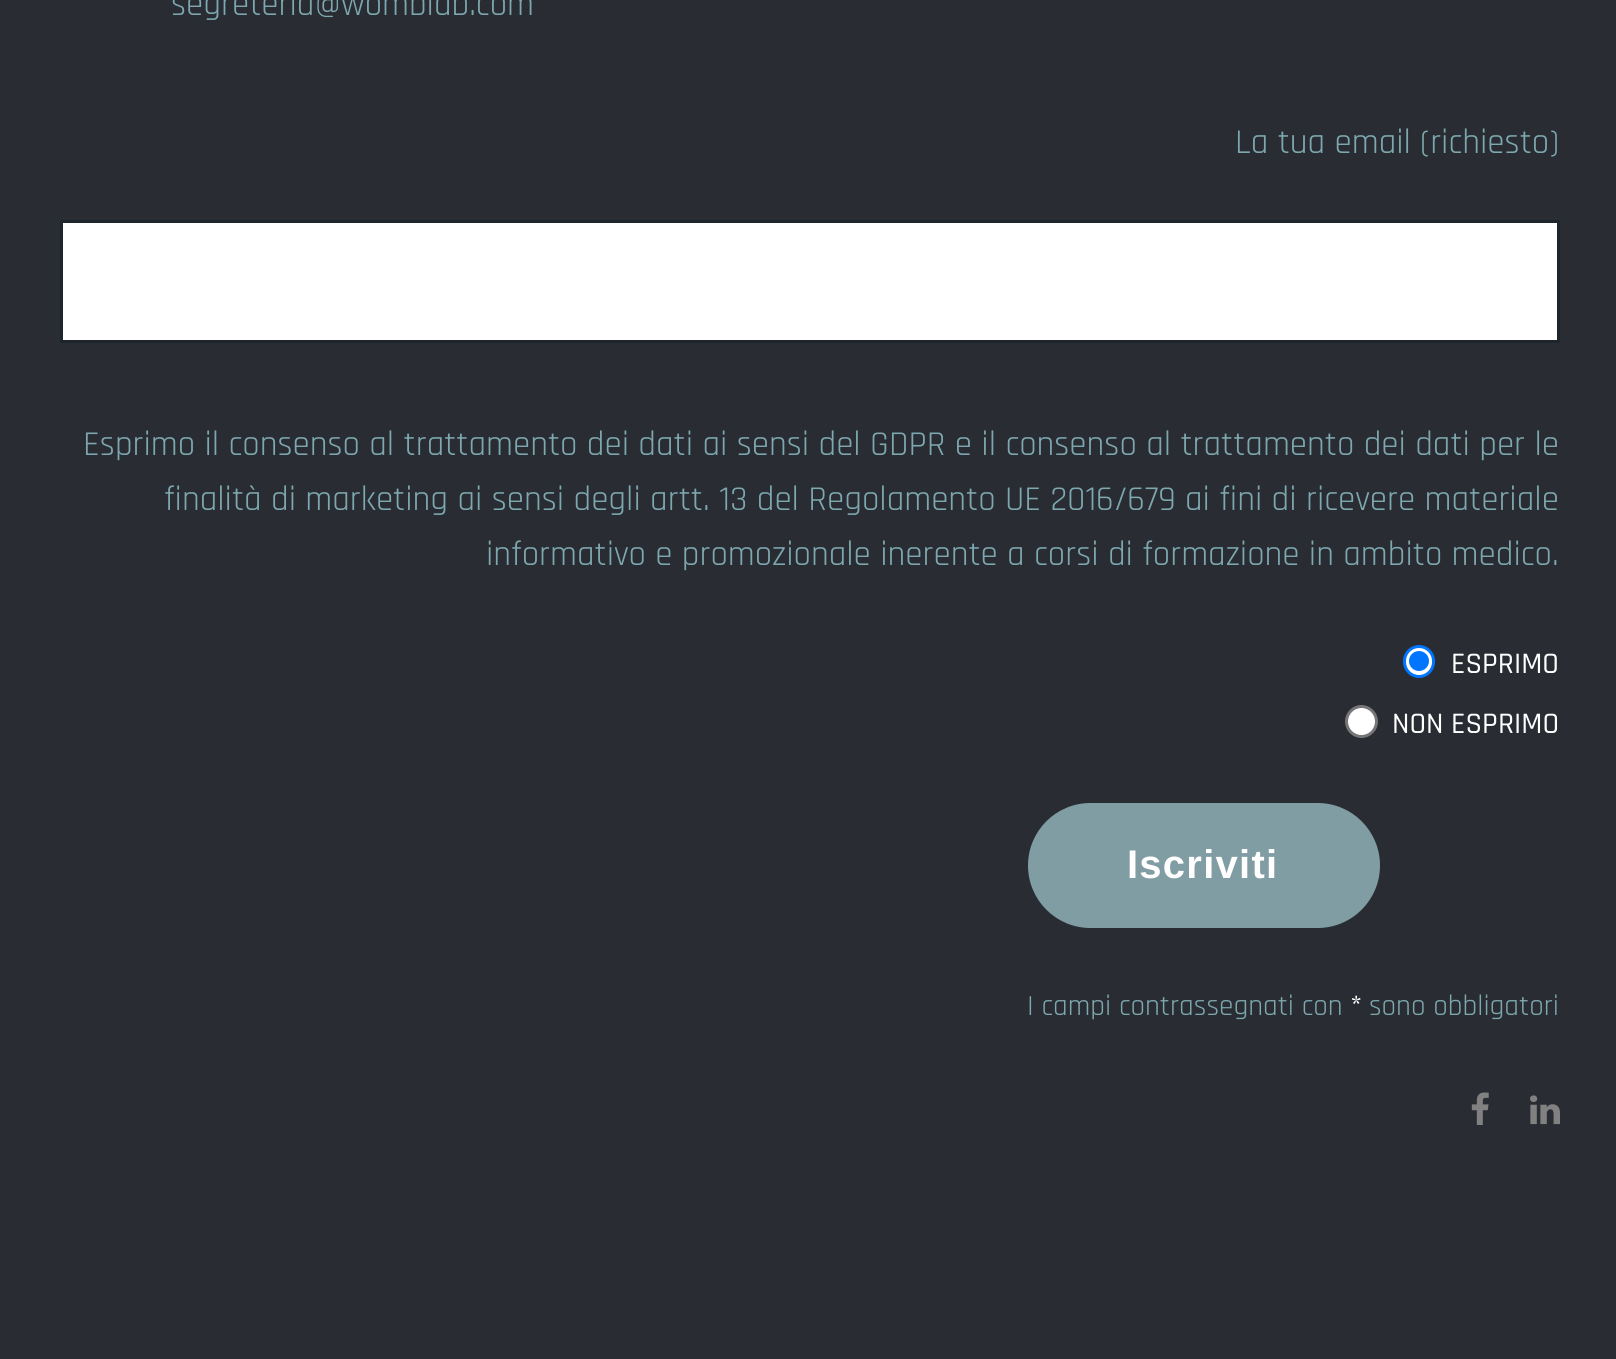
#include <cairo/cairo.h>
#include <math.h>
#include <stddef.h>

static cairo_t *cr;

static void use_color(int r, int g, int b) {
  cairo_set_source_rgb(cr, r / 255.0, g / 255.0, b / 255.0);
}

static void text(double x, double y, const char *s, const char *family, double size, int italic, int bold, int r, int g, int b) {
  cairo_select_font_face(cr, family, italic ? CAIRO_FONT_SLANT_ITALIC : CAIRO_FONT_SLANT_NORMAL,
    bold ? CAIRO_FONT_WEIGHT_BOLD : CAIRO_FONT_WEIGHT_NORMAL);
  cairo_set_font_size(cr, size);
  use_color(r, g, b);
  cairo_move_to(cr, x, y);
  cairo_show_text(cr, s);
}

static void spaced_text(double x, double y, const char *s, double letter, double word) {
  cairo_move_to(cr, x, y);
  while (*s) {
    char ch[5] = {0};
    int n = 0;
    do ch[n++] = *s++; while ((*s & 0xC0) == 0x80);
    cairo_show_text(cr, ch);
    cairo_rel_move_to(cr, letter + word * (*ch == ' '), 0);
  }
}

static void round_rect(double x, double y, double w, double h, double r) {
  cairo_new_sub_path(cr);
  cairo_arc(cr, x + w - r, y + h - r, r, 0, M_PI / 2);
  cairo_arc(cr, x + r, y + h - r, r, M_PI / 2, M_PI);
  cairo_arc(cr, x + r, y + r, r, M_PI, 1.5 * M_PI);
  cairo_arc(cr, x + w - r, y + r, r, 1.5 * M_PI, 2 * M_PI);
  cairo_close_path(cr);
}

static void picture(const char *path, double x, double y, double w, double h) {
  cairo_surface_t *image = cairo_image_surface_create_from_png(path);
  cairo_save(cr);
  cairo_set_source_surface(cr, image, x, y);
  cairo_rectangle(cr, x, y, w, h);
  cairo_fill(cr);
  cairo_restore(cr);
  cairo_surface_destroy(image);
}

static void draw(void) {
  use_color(41, 45, 51);
  cairo_paint(cr);
  use_color(255, 255, 255);
  cairo_rectangle(cr, 61.5, 221.5, 1497, 120);
  cairo_fill_preserve(cr);
  use_color(29, 37, 45);
  cairo_set_line_width(cr, 3);
  cairo_stroke(cr);
  use_color(255, 255, 255);
  round_rect(1404.5, 646.5, 29, 30, 14.5);
  cairo_fill_preserve(cr);
  use_color(0, 117, 255);
  cairo_stroke(cr);
  cairo_arc(cr, 1419, 661, 10, 0, 2 * M_PI);
  cairo_fill(cr);
  use_color(255, 255, 255);
  cairo_arc(cr, 1361.5, 721.5, 15, 0, 2 * M_PI);
  cairo_fill_preserve(cr);
  use_color(118, 118, 118);
  cairo_stroke(cr);
  use_color(128, 157, 164);
  round_rect(1028, 803, 352, 125, 62.5);
  cairo_fill(cr);
  picture("img_01.png", 1471, 1092, 18, 33);
  picture("img_02.png", 1530, 1095, 30, 30);
  text(171, 15, "segreteria@womblab.com", "Rajdhani", 35, 0, 0, 126, 168, 175);
  text(1235, 153, "La tua email (richiesto)", "Rajdhani", 35, 0, 0, 126, 168, 175);
  text(83, 455, "Esprimo il consenso al trattamento dei dati ai sensi del GDPR e il consenso al trattamento dei dati per le", "Rajdhani", 35, 0, 0, 126, 168, 175);
  text(164, 510, "finalità di marketing ai sensi degli artt. 13 del Regolamento UE 2016/679 ai fini di ricevere materiale", "Rajdhani", 35, 0, 0, 126, 168, 175);
  text(486, 565, "informativo e promozionale inerente a corsi di formazione in ambito medico.", "Rajdhani", 35, 0, 0, 126, 168, 175);
  text(1451, 673, "ESPRIMO", "Rajdhani Medium", 30, 0, 0, 255, 255, 255);
  text(1392, 733, "NON ESPRIMO", "Rajdhani Medium", 30, 0, 0, 255, 255, 255);
  cairo_select_font_face(cr, "Liberation Sans", CAIRO_FONT_SLANT_NORMAL, CAIRO_FONT_WEIGHT_BOLD);
  cairo_set_font_size(cr, 40);
  spaced_text(1127, 878, "Iscriviti", 1.25, 0);
  text(1027, 1015, "I campi contrassegnati con", "Rajdhani", 29.25, 0, 0, 126, 168, 175);
  text(1350, 1015, "*", "Rajdhani Medium", 30, 0, 0, 255, 255, 255);
  text(1369, 1015, "sono obbligatori", "Rajdhani", 29.25, 0, 0, 126, 168, 175);
}

int main(void) {
  cairo_surface_t *surface = cairo_image_surface_create(CAIRO_FORMAT_RGB24, 1616, 1359);
  cr = cairo_create(surface);
  cairo_font_options_t *options = cairo_font_options_create();
  cairo_font_options_set_hint_metrics(options, CAIRO_HINT_METRICS_OFF);
  cairo_font_options_set_hint_style(options, CAIRO_HINT_STYLE_NONE);
  cairo_set_font_options(cr, options);
  cairo_set_miter_limit(cr, 4);
  draw();
  cairo_surface_write_to_png(surface, "out.png");
  cairo_font_options_destroy(options);
  cairo_destroy(cr);
  cairo_surface_destroy(surface);
  return 0;
}
